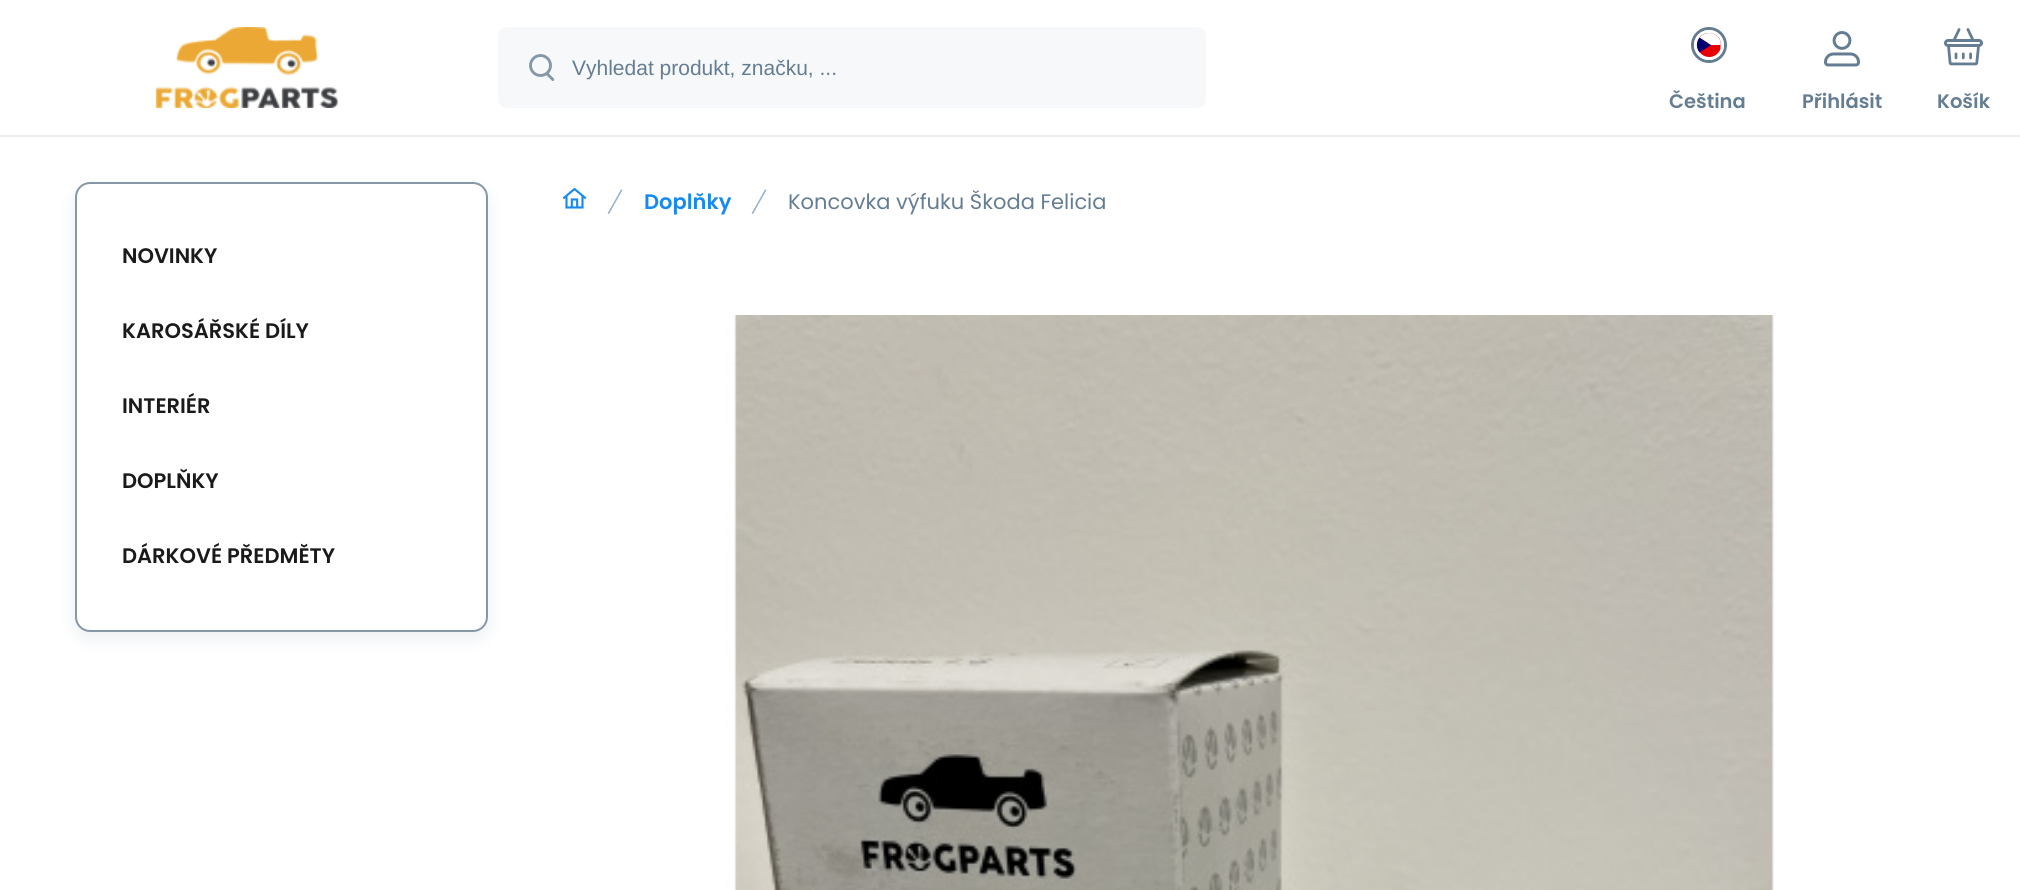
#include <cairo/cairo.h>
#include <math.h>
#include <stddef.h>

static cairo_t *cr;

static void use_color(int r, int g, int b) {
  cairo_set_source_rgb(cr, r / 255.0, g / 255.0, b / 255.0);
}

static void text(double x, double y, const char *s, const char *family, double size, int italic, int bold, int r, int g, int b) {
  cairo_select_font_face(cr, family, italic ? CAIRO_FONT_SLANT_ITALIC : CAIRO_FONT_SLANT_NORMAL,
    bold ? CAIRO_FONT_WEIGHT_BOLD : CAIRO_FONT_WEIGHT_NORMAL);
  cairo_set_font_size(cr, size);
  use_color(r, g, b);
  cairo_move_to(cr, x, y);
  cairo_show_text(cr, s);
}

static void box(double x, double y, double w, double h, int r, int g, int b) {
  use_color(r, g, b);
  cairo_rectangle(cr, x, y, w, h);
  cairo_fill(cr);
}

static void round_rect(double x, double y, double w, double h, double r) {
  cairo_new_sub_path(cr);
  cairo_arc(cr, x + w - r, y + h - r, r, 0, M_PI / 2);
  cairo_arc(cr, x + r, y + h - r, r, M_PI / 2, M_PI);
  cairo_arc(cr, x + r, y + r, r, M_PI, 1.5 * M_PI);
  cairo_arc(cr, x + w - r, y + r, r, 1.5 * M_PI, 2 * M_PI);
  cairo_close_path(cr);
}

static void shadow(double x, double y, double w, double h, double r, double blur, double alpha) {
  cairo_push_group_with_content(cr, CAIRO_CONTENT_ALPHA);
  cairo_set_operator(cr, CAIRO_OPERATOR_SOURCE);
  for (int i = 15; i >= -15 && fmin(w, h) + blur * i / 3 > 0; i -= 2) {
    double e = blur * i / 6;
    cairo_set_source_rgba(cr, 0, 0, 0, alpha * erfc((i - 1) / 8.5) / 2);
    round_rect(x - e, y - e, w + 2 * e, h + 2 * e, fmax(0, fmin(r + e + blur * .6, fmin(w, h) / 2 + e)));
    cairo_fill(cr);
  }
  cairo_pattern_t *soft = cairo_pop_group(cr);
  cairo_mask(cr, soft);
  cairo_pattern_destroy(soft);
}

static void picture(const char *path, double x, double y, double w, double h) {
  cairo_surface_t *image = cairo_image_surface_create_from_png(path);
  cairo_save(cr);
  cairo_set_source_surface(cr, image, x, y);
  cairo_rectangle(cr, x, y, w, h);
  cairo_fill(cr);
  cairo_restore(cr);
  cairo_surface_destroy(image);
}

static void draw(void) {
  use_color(255, 255, 255);
  cairo_paint(cr);
  box(0, 135, 2020, 2, 236, 237, 239);
  picture("img_01.png", 155, 27, 183, 81);
  use_color(247, 248, 250);
  round_rect(498, 27, 708, 81, 9);
  cairo_fill(cr);
  picture("img_02.png", 529, 54, 26, 27);
  cairo_arc(cr, 1709, 45, 16.5, 0, 2 * M_PI);
  use_color(101, 125, 146);
  cairo_set_line_width(cr, 3);
  cairo_stroke(cr);
  cairo_arc(cr, 1709, 45, 13.5, 0, 2 * M_PI);
  use_color(255, 255, 255);
  cairo_stroke(cr);
  use_color(232, 0, 0);
  cairo_new_path(cr);
  cairo_move_to(cr, 1709, 33);
  cairo_curve_to(cr, 1714, 33, 1719.5, 36.5, 1720.5, 41.5);
  cairo_line_to(cr, 1720.5, 48.5);
  cairo_curve_to(cr, 1719.5, 53.5, 1713.5, 57.5, 1708.5, 57);
  cairo_curve_to(cr, 1693, 55.5, 1694, 33, 1709, 33);
  cairo_close_path(cr);
  cairo_fill(cr);
  use_color(255, 255, 255);
  cairo_new_path(cr);
  cairo_move_to(cr, 1709, 33);
  cairo_curve_to(cr, 1714.5, 33, 1719, 36.5, 1720.5, 41.5);
  cairo_line_to(cr, 1720.5, 45);
  cairo_line_to(cr, 1697, 45);
  cairo_curve_to(cr, 1697, 38.5, 1702.5, 33, 1709, 33);
  cairo_close_path(cr);
  cairo_fill(cr);
  use_color(0, 0, 111);
  cairo_new_path(cr);
  cairo_move_to(cr, 1699.5, 52.5);
  cairo_curve_to(cr, 1696, 48, 1696, 42, 1699.5, 37.5);
  cairo_line_to(cr, 1711, 45);
  cairo_close_path(cr);
  cairo_fill(cr);
  picture("img_03.png", 1824, 31, 36, 36);
  picture("img_04.png", 1944, 28, 39, 38);
  picture("img_05.png", 563, 188, 24, 21);
  use_color(152, 177, 199);
  cairo_new_path(cr);
  cairo_move_to(cr, 607.5, 213.5);
  cairo_line_to(cr, 621, 189.5);
  cairo_line_to(cr, 622.5, 190);
  cairo_line_to(cr, 609, 214);
  cairo_close_path(cr);
  cairo_fill(cr);
  cairo_new_path(cr);
  cairo_move_to(cr, 751.5, 213.5);
  cairo_line_to(cr, 765, 189.5);
  cairo_line_to(cr, 766.5, 190);
  cairo_line_to(cr, 753, 214);
  cairo_close_path(cr);
  cairo_fill(cr);
  picture("img_06.png", 724, 315, 1050, 575);
  use_color(134, 151, 167);
  shadow(75, 189, 413, 450, 15, 9, 0.16);
  use_color(255, 255, 255);
  round_rect(76, 183, 411, 448, 14);
  cairo_fill_preserve(cr);
  use_color(134, 151, 167);
  cairo_set_line_width(cr, 2);
  cairo_stroke(cr);
  text(572, 75, "Vyhledat produkt, značku, ...", "Liberation Sans", 21, 0, 0, 101, 125, 146);
  text(1669, 108, "Čeština", "Poppins SemiBold", 19.5, 0, 0, 101, 125, 146);
  text(1802, 108, "Přihlásit", "Poppins SemiBold", 19.5, 0, 0, 101, 125, 146);
  text(1937, 108, "Košík", "Poppins SemiBold", 19.5, 0, 0, 101, 125, 146);
  text(644, 209, "Doplňky", "Poppins SemiBold", 21, 0, 0, 23, 138, 239);
  text(788, 209, "Koncovka výfuku Škoda Felicia", "Poppins", 21, 0, 0, 101, 125, 146);
  text(122, 263, "NOVINKY", "Poppins SemiBold", 21, 0, 0, 26, 26, 26);
  text(122, 338, "KAROSÁŘSKÉ DÍLY", "Poppins SemiBold", 21, 0, 0, 26, 26, 26);
  text(122, 413, "INTERIÉR", "Poppins SemiBold", 21, 0, 0, 26, 26, 26);
  text(122, 488, "DOPLŇKY", "Poppins SemiBold", 21, 0, 0, 26, 26, 26);
  text(122, 563, "DÁRKOVÉ PŘEDMĚTY", "Poppins SemiBold", 21, 0, 0, 26, 26, 26);
}

int main(void) {
  cairo_surface_t *surface = cairo_image_surface_create(CAIRO_FORMAT_RGB24, 2020, 890);
  cr = cairo_create(surface);
  cairo_font_options_t *options = cairo_font_options_create();
  cairo_font_options_set_hint_metrics(options, CAIRO_HINT_METRICS_OFF);
  cairo_font_options_set_hint_style(options, CAIRO_HINT_STYLE_NONE);
  cairo_set_font_options(cr, options);
  cairo_set_miter_limit(cr, 4);
  draw();
  cairo_surface_write_to_png(surface, "out.png");
  cairo_font_options_destroy(options);
  cairo_destroy(cr);
  cairo_surface_destroy(surface);
  return 0;
}
